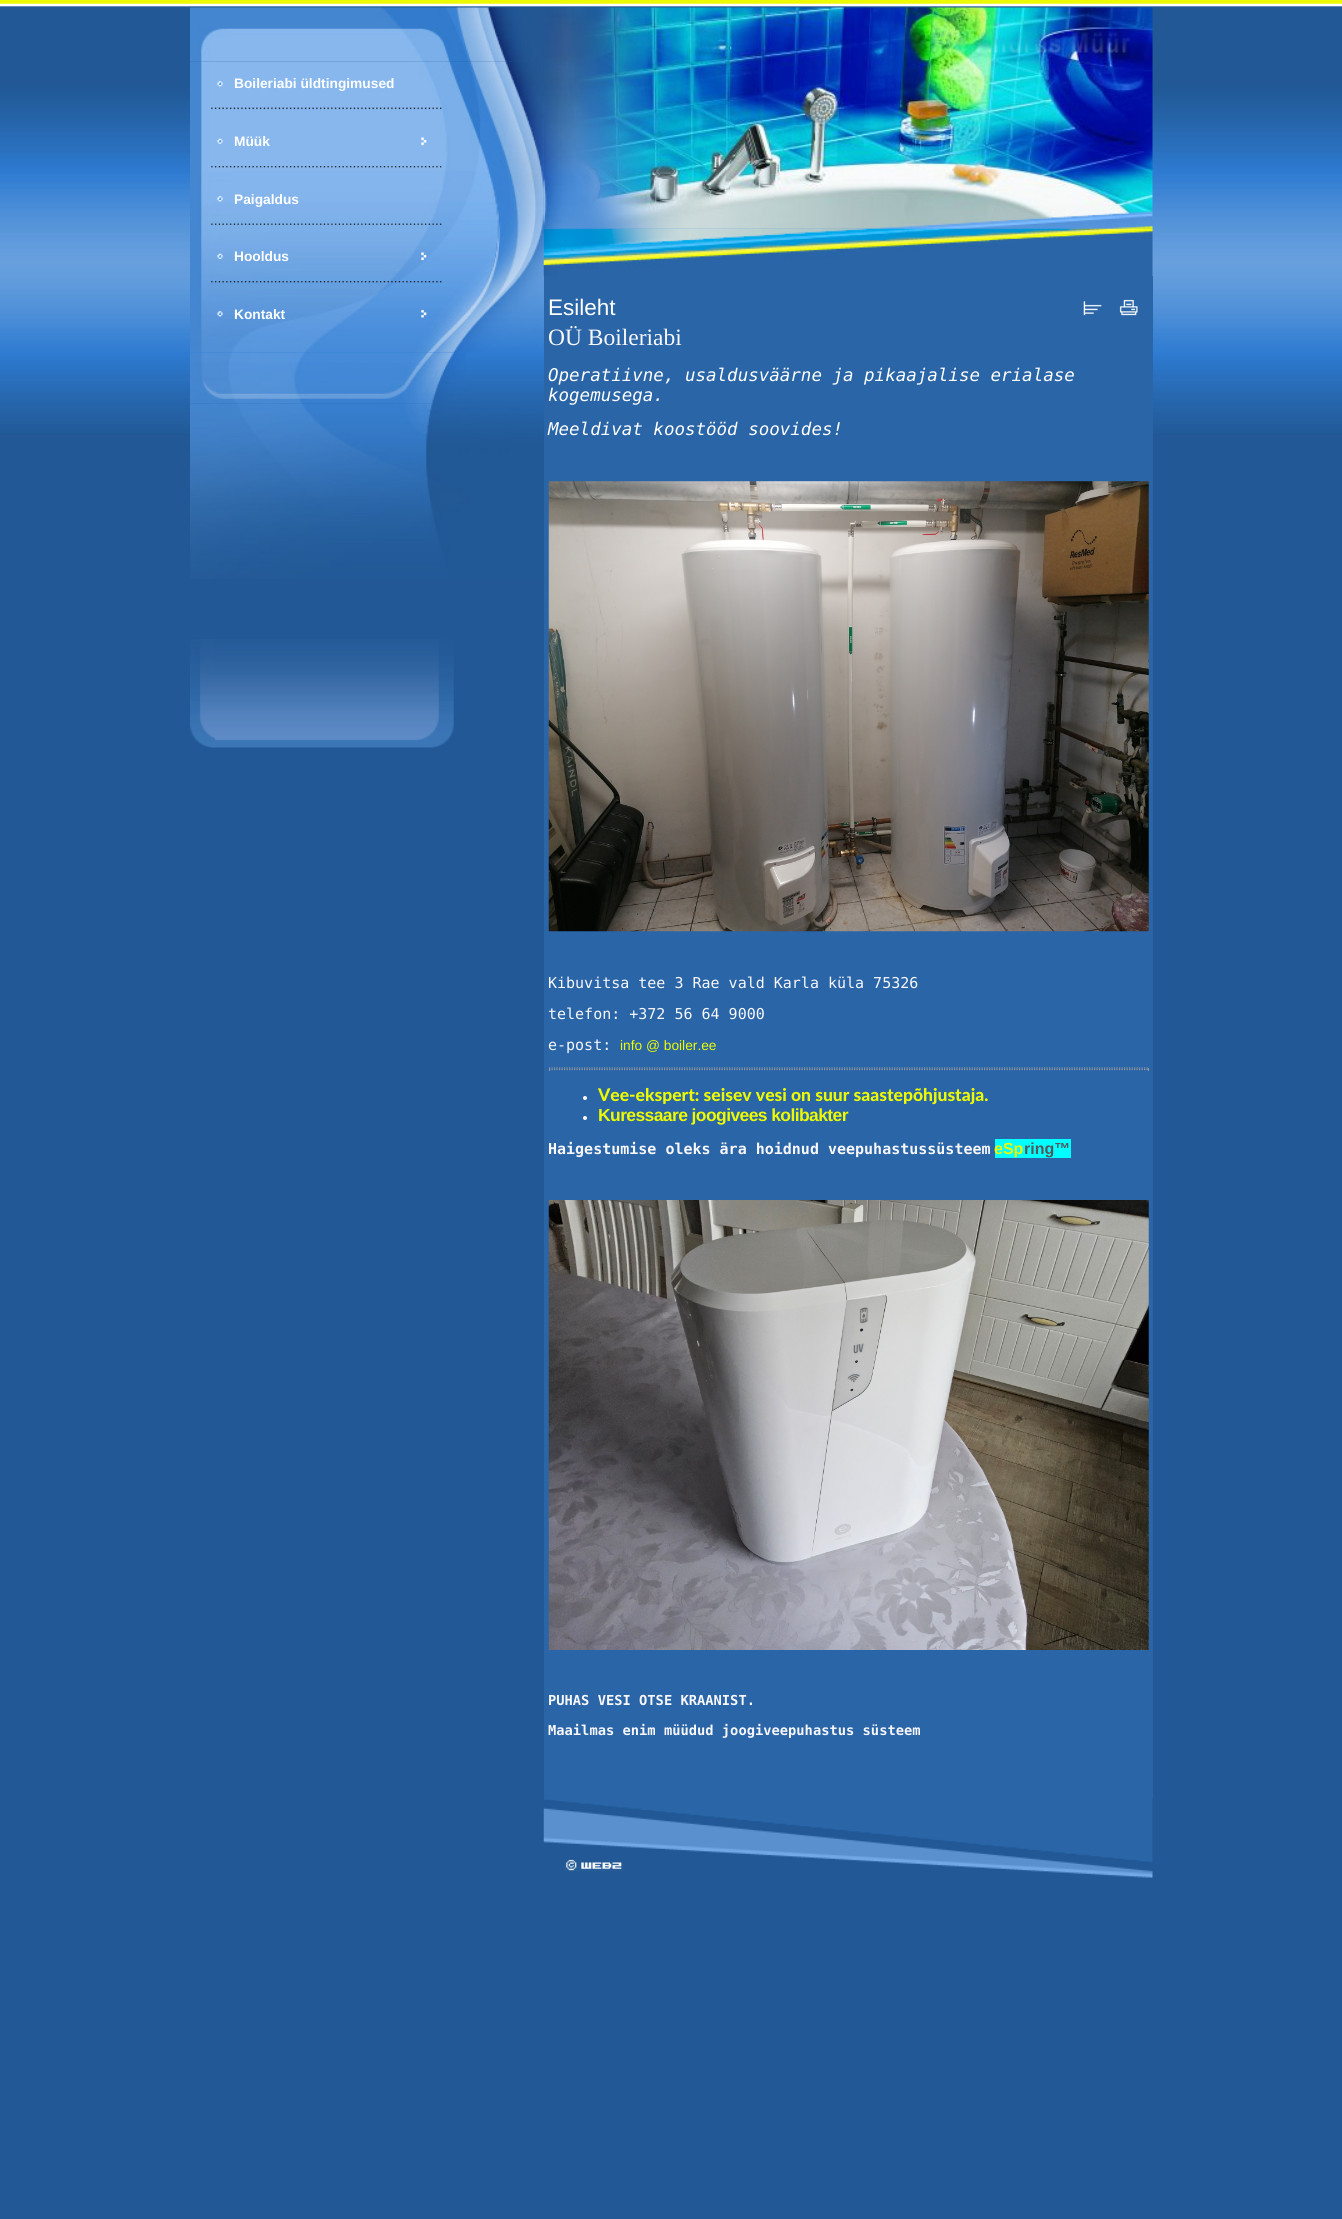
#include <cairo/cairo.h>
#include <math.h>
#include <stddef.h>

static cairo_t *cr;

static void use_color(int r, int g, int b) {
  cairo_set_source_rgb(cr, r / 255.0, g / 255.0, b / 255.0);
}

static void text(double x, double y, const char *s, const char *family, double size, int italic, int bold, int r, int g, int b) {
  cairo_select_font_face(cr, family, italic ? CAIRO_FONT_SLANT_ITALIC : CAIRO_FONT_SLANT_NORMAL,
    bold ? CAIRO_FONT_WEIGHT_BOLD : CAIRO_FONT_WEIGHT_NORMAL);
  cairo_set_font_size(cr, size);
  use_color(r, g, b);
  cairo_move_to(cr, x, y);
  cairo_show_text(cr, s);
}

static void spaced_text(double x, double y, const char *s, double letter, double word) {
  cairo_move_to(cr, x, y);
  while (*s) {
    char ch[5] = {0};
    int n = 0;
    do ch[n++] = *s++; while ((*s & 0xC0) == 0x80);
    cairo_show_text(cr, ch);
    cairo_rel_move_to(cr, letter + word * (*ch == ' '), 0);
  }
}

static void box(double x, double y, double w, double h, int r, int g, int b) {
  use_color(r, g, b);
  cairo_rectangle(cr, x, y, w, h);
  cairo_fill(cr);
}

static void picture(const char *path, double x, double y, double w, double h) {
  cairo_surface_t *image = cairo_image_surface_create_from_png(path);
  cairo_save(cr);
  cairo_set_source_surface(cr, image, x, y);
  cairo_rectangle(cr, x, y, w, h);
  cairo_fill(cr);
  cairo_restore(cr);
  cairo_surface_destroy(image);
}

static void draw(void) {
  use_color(33, 88, 149);
  cairo_paint(cr);
  picture("img_01.png", 0, 0, 1342, 433);
  picture("img_03.png", 190, 61, 354, 292);
  picture("img_02.png", 190, 7, 353, 55);
  picture("img_04.png", 217, 81, 6, 6);
  picture("img_05.png", 211, 107, 231, 3);
  picture("img_06.png", 217, 138, 6, 6);
  picture("img_07.png", 421, 137, 6, 9);
  picture("img_08.png", 211, 166, 231, 2);
  picture("img_09.png", 217, 196, 6, 6);
  picture("img_10.png", 211, 223, 231, 2);
  picture("img_11.png", 217, 253, 6, 6);
  picture("img_12.png", 421, 252, 6, 9);
  picture("img_13.png", 211, 281, 231, 2);
  picture("img_14.png", 217, 311, 6, 6);
  picture("img_15.png", 421, 309, 6, 9);
  picture("img_17.png", 190, 403, 353, 176);
  picture("img_16.png", 190, 352, 276, 52);
  picture("img_18.png", 190, 639, 264, 109);
  picture("img_19.png", 543, 7, 610, 222);
  box(544, 276, 609, 1522, 41, 101, 167);
  picture("img_20.png", 543, 228, 610, 49);
  picture("img_21.png", 1083, 301, 19, 15);
  picture("img_22.png", 1119, 299, 19, 17);
  picture("img_23.png", 548, 481, 601, 451);
  cairo_new_path(cr);
  cairo_move_to(cr, 549, 1068);
  cairo_line_to(cr, 1149, 1068);
  use_color(153, 153, 153);
  cairo_set_line_width(cr, 1.2);
  cairo_set_dash(cr, (double[]){1.25, 1.25}, 2, 0);
  cairo_stroke(cr);
  box(1148, 1068, 1, 3, 153, 153, 153);
  cairo_new_path(cr);
  cairo_move_to(cr, 549, 1069.5);
  cairo_line_to(cr, 1149, 1069.5);
  cairo_stroke(cr);
  box(549, 1068, 1, 3, 153, 153, 153);
  use_color(248, 247, 251);
  cairo_arc(cr, 585, 1098, 2, 0, 2 * M_PI);
  cairo_fill(cr);
  cairo_arc(cr, 585, 1118, 2, 0, 2 * M_PI);
  cairo_fill(cr);
  box(995, 1139, 76, 19, 0, 255, 255);
  picture("img_24.png", 548, 1200, 601, 450);
  picture("img_25.png", 543, 1798, 610, 80);
  text(234, 88, "Boileriabi üldtingimused", "Liberation Sans", 13.75, 0, 1, 255, 255, 255);
  text(234, 146, "Müük", "Liberation Sans", 13.75, 0, 1, 255, 255, 255);
  text(234, 204, "Paigaldus", "Liberation Sans", 13.75, 0, 1, 255, 255, 255);
  text(234, 261, "Hooldus", "Liberation Sans", 13.75, 0, 1, 255, 255, 255);
  text(234, 319, "Kontakt", "Liberation Sans", 13.75, 0, 1, 255, 255, 255);
  text(548, 315, "Esileht", "Liberation Sans", 22.5, 0, 0, 255, 255, 255);
  text(548, 345, "OÜ Boileriabi", "Liberation Serif", 23.5, 0, 0, 248, 247, 251);
  text(548, 381, "Operatiivne, usaldusväärne ja pikaajalise erialase", "DejaVu Sans Mono", 17.5, 1, 0, 255, 255, 255);
  text(548, 401, "kogemusega.", "DejaVu Sans Mono", 17.5, 1, 0, 255, 255, 255);
  text(548, 435, "Meeldivat koostööd soovides!", "DejaVu Sans Mono", 17.5, 1, 0, 255, 255, 255);
  text(548, 988, "Kibuvitsa tee 3 Rae vald Karla küla 75326", "DejaVu Sans Mono", 15, 0, 0, 248, 247, 251);
  text(548, 1019, "telefon: +372 56 64 9000", "DejaVu Sans Mono", 15, 0, 0, 248, 247, 251);
  text(548, 1050, "e-post:", "DejaVu Sans Mono", 15, 0, 0, 248, 247, 251);
  text(620, 1050, "info @ boiler.ee", "Liberation Sans", 13.75, 0, 0, 236, 250, 4);
  text(598, 1101, "Vee-ekspert: seisev vesi on suur saastepõhjustaja.", "Lato Black", 17.5, 0, 0, 236, 250, 4);
  cairo_select_font_face(cr, "Liberation Sans", CAIRO_FONT_SLANT_NORMAL, CAIRO_FONT_WEIGHT_BOLD);
  spaced_text(598, 1121, "Kuressaare joogivees kolibakter", -0.6, 0);
  text(548, 1154, "Haigestumise oleks ära hoidnud veepuhastussüsteem", "DejaVu Sans Mono", 15, 0, 1, 248, 247, 251);
  text(994, 1154, "eSp", "Liberation Sans", 16, 0, 1, 236, 250, 4);
  text(1024, 1154, "ring™", "Liberation Sans", 16, 0, 1, 86, 86, 90);
  text(548, 1705, "PUHAS VESI OTSE KRAANIST.", "DejaVu Sans Mono", 13.75, 0, 1, 248, 247, 251);
  text(548, 1735, "Maailmas enim müüdud joogiveepuhastus süsteem", "DejaVu Sans Mono", 13.75, 0, 1, 248, 247, 251);
}

int main(void) {
  cairo_surface_t *surface = cairo_image_surface_create(CAIRO_FORMAT_RGB24, 1342, 2219);
  cr = cairo_create(surface);
  cairo_font_options_t *options = cairo_font_options_create();
  cairo_font_options_set_hint_metrics(options, CAIRO_HINT_METRICS_OFF);
  cairo_font_options_set_hint_style(options, CAIRO_HINT_STYLE_NONE);
  cairo_set_font_options(cr, options);
  cairo_set_miter_limit(cr, 4);
  draw();
  cairo_surface_write_to_png(surface, "out.png");
  cairo_font_options_destroy(options);
  cairo_destroy(cr);
  cairo_surface_destroy(surface);
  return 0;
}
